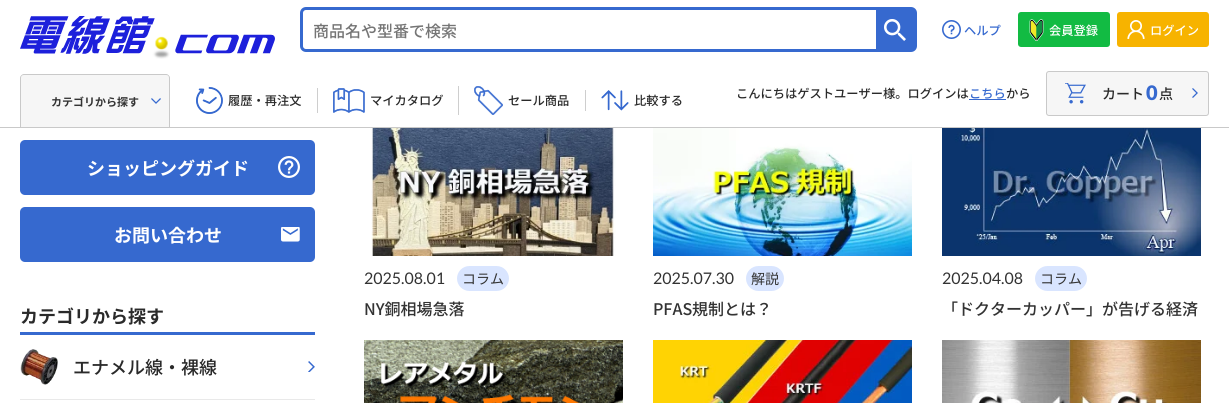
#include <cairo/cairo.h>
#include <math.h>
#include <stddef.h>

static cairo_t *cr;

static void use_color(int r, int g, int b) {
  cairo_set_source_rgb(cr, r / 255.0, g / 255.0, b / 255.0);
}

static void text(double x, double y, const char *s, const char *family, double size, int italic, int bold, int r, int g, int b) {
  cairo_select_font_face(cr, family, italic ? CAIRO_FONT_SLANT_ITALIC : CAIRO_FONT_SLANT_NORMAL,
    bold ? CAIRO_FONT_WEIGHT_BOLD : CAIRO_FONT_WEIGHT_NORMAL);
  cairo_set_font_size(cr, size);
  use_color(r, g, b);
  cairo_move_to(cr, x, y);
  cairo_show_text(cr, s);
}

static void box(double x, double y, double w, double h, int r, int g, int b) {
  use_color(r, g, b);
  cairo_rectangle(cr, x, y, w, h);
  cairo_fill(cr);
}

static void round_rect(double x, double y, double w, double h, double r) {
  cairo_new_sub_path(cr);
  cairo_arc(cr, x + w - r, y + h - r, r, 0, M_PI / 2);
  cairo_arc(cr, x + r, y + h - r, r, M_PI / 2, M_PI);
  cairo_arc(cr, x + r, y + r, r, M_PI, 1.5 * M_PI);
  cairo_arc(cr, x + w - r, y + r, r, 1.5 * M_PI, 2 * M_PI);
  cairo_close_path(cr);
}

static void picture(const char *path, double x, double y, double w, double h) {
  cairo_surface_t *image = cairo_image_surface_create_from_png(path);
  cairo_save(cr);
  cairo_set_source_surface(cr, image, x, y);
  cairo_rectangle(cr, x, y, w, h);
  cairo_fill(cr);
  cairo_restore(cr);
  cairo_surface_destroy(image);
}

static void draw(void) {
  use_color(255, 255, 255);
  cairo_paint(cr);
  box(0, 127, 1229, 1, 201, 201, 201);
  picture("img_01.png", 20, 16, 255, 43);
  round_rect(301.5, 8.5, 614, 42, 4.5);
  use_color(54, 105, 207);
  cairo_set_line_width(cr, 3);
  cairo_stroke(cr);
  box(876, 10, 38, 39, 54, 105, 207);
  picture("img_02.png", 884, 19, 22, 22);
  picture("img_03.png", 942, 20, 19, 19);
  use_color(18, 187, 67);
  round_rect(1018, 12, 92, 35, 3);
  cairo_fill(cr);
  picture("img_04.png", 1029, 19, 15, 22);
  use_color(247, 179, 0);
  round_rect(1117, 12, 92, 35, 3);
  cairo_fill(cr);
  picture("img_05.png", 1127, 20, 18, 19);
  use_color(246, 246, 246);
  cairo_new_path(cr);
  cairo_move_to(cr, 24, 74);
  cairo_line_to(cr, 166, 74);
  cairo_curve_to(cr, 168, 74, 170, 76, 170, 78);
  cairo_line_to(cr, 170, 127);
  cairo_line_to(cr, 20, 127);
  cairo_line_to(cr, 20, 78);
  cairo_curve_to(cr, 20, 76, 22, 74, 24, 74);
  cairo_close_path(cr);
  cairo_fill(cr);
  use_color(201, 201, 201);
  cairo_set_fill_rule(cr, CAIRO_FILL_RULE_EVEN_ODD);
  cairo_new_path(cr);
  cairo_move_to(cr, 24, 74);
  cairo_line_to(cr, 166, 74);
  cairo_curve_to(cr, 168, 74, 170, 76, 170, 78);
  cairo_line_to(cr, 170, 127);
  cairo_line_to(cr, 20, 127);
  cairo_line_to(cr, 20, 78);
  cairo_curve_to(cr, 20, 76, 22, 74, 24, 74);
  cairo_close_path(cr);
  cairo_move_to(cr, 24, 75);
  cairo_line_to(cr, 166, 75);
  cairo_curve_to(cr, 168, 75, 169, 76, 169, 78);
  cairo_line_to(cr, 169, 127);
  cairo_line_to(cr, 21, 127);
  cairo_line_to(cr, 21, 78);
  cairo_curve_to(cr, 21, 76, 22, 75, 24, 75);
  cairo_close_path(cr);
  cairo_fill(cr);
  picture("img_06.png", 151, 98, 10, 6);
  picture("img_07.png", 196, 87, 27, 27);
  box(317, 88, 1, 25, 206, 206, 206);
  picture("img_08.png", 333, 88, 32, 25);
  box(458, 86, 1, 29, 206, 206, 206);
  picture("img_09.png", 474, 86, 29, 29);
  box(585, 90, 1, 21, 206, 206, 206);
  picture("img_10.png", 601, 90, 28, 21);
  box(969, 99, 37, 1, 54, 105, 207);
  use_color(246, 246, 246);
  round_rect(1046.5, 71.5, 162, 44, 2.5);
  cairo_fill_preserve(cr);
  use_color(201, 201, 201);
  cairo_set_line_width(cr, 1);
  cairo_stroke(cr);
  picture("img_11.png", 1065, 83, 21, 21);
  picture("img_12.png", 1192, 88, 6, 10);
  use_color(54, 105, 207);
  round_rect(20, 140, 295, 55, 5);
  cairo_fill(cr);
  picture("img_13.png", 278, 156, 22, 22);
  round_rect(20, 207, 295, 55, 5);
  cairo_fill(cr);
  picture("img_14.png", 281, 227, 19, 15);
  box(20, 332, 295, 3, 54, 105, 207);
  box(20, 399, 295, 1, 233, 233, 233);
  picture("img_15.png", 20, 349, 38, 36);
  picture("img_16.png", 308, 361, 7, 11);
  picture("img_17.png", 371, 128, 245, 128);
  use_color(217, 229, 255);
  round_rect(457, 266, 52, 25, 12.5);
  cairo_fill(cr);
  picture("img_18.png", 653, 128, 259, 128);
  round_rect(746, 266, 38, 25, 12.5);
  cairo_fill(cr);
  picture("img_19.png", 942, 128, 259, 128);
  round_rect(1035, 266, 52, 25, 12.5);
  cairo_fill(cr);
  picture("img_20.png", 364, 340, 259, 63);
  picture("img_21.png", 653, 340, 259, 63);
  picture("img_22.png", 942, 340, 259, 63);
  text(313, 37, "商品名や型番で検索", "Noto Sans JP Medium", 16, 0, 0, 117, 117, 117);
  text(964, 35, "ヘルプ", "Noto Sans JP Medium", 12.25, 0, 0, 54, 105, 207);
  text(1049, 35, "会員登録", "Noto Sans JP Medium", 12.25, 0, 0, 255, 255, 255);
  text(1150, 35, "ログイン", "Noto Sans JP Medium", 12.25, 0, 0, 255, 255, 255);
  text(51, 106, "カテゴリから探す", "Noto Sans JP", 11, 0, 1, 51, 51, 51);
  text(228, 105, "履歴・再注文", "Noto Sans JP Medium", 12.25, 0, 0, 42, 42, 42);
  text(370, 105, "マイカタログ", "Noto Sans JP Medium", 12.25, 0, 0, 42, 42, 42);
  text(508, 105, "セール商品", "Noto Sans JP Medium", 12.25, 0, 0, 42, 42, 42);
  text(634, 105, "比較する", "Noto Sans JP Medium", 12.25, 0, 0, 42, 42, 42);
  text(736, 98, "こんにちはゲストユーザー様。ログインは", "Noto Sans JP Medium", 12.25, 0, 0, 42, 42, 42);
  text(969, 98, "こちら", "Noto Sans JP Medium", 12.25, 0, 0, 54, 105, 207);
  text(1006, 98, "から", "Noto Sans JP Medium", 12.25, 0, 0, 42, 42, 42);
  text(1102, 99, "カート", "Noto Sans JP Medium", 14, 0, 0, 42, 42, 42);
  text(1146, 100, "0", "Lato Black", 20, 0, 0, 54, 105, 207);
  text(1159, 99, "点", "Noto Sans JP Medium", 14, 0, 0, 42, 42, 42);
  text(87, 175, "ショッピングガイド", "Noto Sans JP", 18, 0, 1, 255, 255, 255);
  text(114, 242, "お問い合わせ", "Noto Sans JP", 18, 0, 1, 255, 255, 255);
  text(20, 323, "カテゴリから探す", "Noto Sans JP", 18, 0, 1, 42, 42, 42);
  text(73, 374, "エナメル線・裸線", "Noto Sans JP Medium", 18, 0, 0, 42, 42, 42);
  text(364, 284, "2025.08.01", "Lato", 16, 0, 0, 51, 51, 51);
  text(462, 284, "コラム", "Noto Sans JP", 14, 0, 0, 51, 51, 51);
  text(364, 315, "NY銅相場急落", "Noto Sans JP Medium", 16, 0, 0, 51, 51, 51);
  text(653, 284, "2025.07.30", "Lato", 16, 0, 0, 51, 51, 51);
  text(751, 284, "解説", "Noto Sans JP", 14, 0, 0, 51, 51, 51);
  text(653, 315, "PFAS規制とは？", "Noto Sans JP Medium", 16, 0, 0, 51, 51, 51);
  text(942, 284, "2025.04.08", "Lato", 16, 0, 0, 51, 51, 51);
  text(1040, 284, "コラム", "Noto Sans JP", 14, 0, 0, 51, 51, 51);
  text(942, 315, "「ドクターカッパー」が告げる経済", "Noto Sans JP Medium", 16, 0, 0, 51, 51, 51);
}

int main(void) {
  cairo_surface_t *surface = cairo_image_surface_create(CAIRO_FORMAT_RGB24, 1229, 403);
  cr = cairo_create(surface);
  cairo_font_options_t *options = cairo_font_options_create();
  cairo_font_options_set_hint_metrics(options, CAIRO_HINT_METRICS_OFF);
  cairo_font_options_set_hint_style(options, CAIRO_HINT_STYLE_NONE);
  cairo_set_font_options(cr, options);
  cairo_set_miter_limit(cr, 4);
  draw();
  cairo_surface_write_to_png(surface, "out.png");
  cairo_font_options_destroy(options);
  cairo_destroy(cr);
  cairo_surface_destroy(surface);
  return 0;
}
